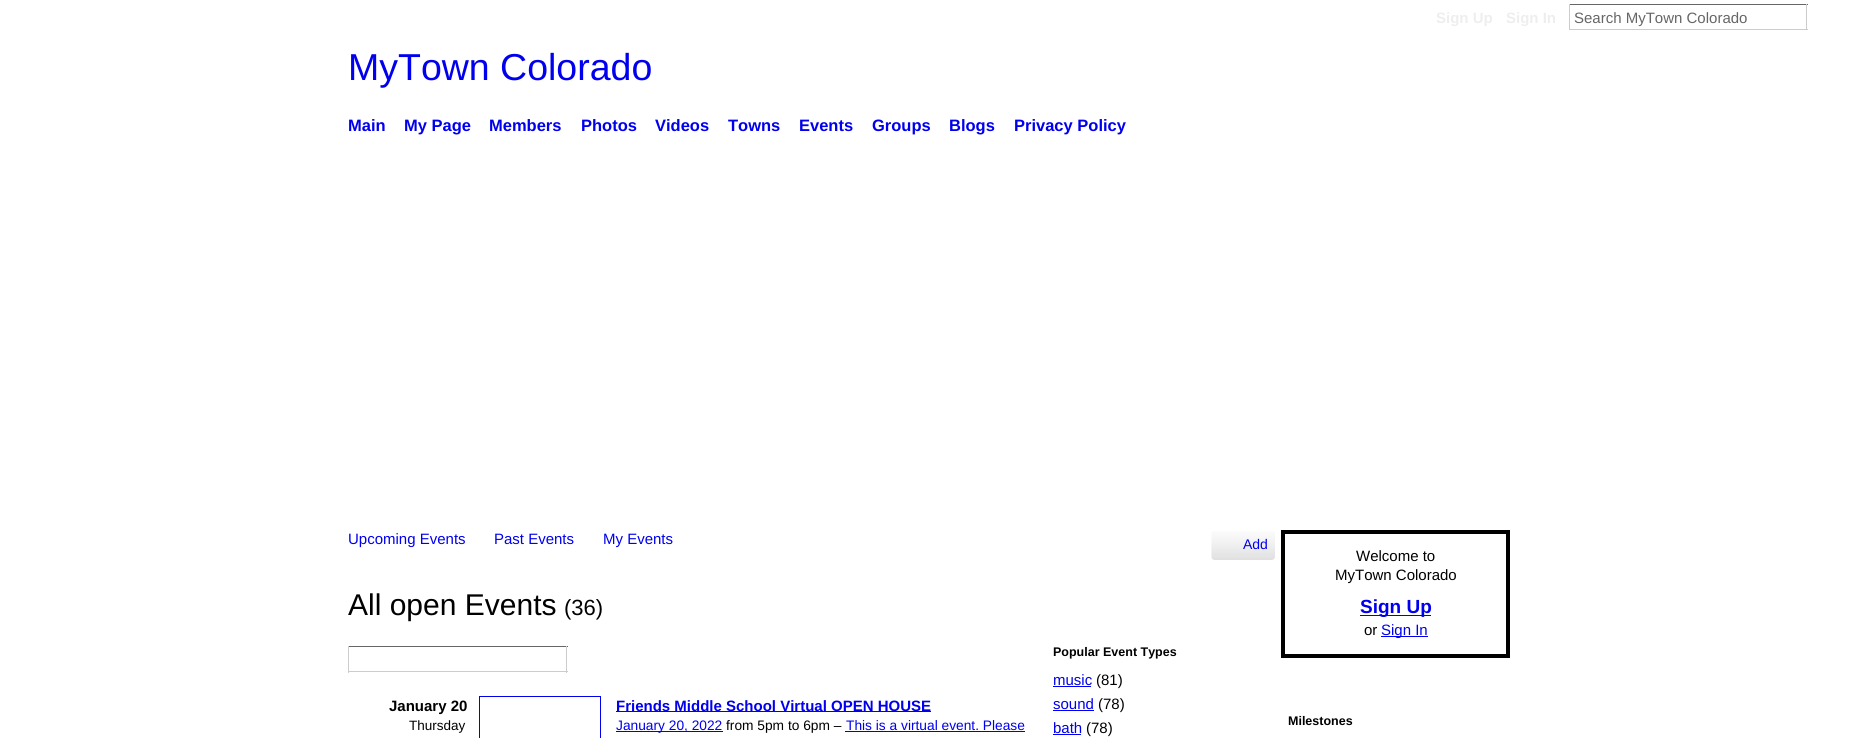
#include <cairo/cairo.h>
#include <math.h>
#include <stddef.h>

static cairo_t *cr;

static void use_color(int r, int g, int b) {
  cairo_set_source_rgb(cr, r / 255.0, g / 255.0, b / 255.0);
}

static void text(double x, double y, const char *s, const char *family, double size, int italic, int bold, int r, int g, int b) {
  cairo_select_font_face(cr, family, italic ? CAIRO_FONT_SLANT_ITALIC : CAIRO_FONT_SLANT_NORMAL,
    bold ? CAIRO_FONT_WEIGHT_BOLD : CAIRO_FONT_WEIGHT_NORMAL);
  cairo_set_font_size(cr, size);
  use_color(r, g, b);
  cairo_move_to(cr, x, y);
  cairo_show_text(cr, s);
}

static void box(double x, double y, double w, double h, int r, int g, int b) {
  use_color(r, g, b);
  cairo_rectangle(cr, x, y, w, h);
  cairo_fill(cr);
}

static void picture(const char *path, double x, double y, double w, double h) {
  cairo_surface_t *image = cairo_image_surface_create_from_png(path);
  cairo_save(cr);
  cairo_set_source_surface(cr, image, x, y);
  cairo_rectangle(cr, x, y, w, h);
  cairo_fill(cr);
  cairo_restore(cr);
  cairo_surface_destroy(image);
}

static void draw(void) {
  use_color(255, 255, 255);
  cairo_paint(cr);
  box(1569, 4, 239, 1, 102, 102, 102);
  box(1806, 4, 1, 26, 204, 204, 204);
  box(1569, 29, 239, 1, 204, 204, 204);
  box(1569, 4, 1, 26, 204, 204, 204);
  picture("img_01.png", 1211, 531, 64, 29);
  box(348, 646, 220, 1, 102, 102, 102);
  box(566, 646, 1, 27, 204, 204, 204);
  box(348, 671, 220, 1, 204, 204, 204);
  box(348, 646, 1, 27, 204, 204, 204);
  cairo_rectangle(cr, 479.5, 696.5, 121, 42);
  use_color(0, 0, 238);
  cairo_set_line_width(cr, 1);
  cairo_stroke(cr);
  box(616, 711, 315, 1, 0, 0, 238);
  box(616, 731, 107, 1, 0, 0, 238);
  box(845, 731, 180, 1, 0, 0, 238);
  box(1053, 686, 38, 1, 0, 0, 238);
  box(1053, 710, 41, 1, 0, 0, 238);
  box(1053, 734, 28, 1, 0, 0, 238);
  cairo_rectangle(cr, 1283, 532, 225, 124);
  use_color(0, 0, 0);
  cairo_set_line_width(cr, 4);
  cairo_stroke(cr);
  box(1360, 615, 71, 1, 0, 0, 238);
  box(1381, 636, 47, 1, 0, 0, 238);
  text(1436, 23, "Sign Up", "Liberation Sans", 15, 0, 1, 238, 238, 238);
  text(1506, 23, "Sign In", "Liberation Sans", 15, 0, 1, 238, 238, 238);
  text(1574, 23, "Search MyTown Colorado", "Liberation Sans", 15, 0, 0, 102, 102, 102);
  text(348, 80, "MyTown Colorado", "Liberation Sans", 37.5, 0, 0, 0, 0, 238);
  text(348, 131, "Main", "Liberation Sans", 16.5, 0, 1, 0, 0, 238);
  text(404, 131, "My Page", "Liberation Sans", 16.5, 0, 1, 0, 0, 238);
  text(489, 131, "Members", "Liberation Sans", 16.5, 0, 1, 0, 0, 238);
  text(581, 131, "Photos", "Liberation Sans", 16.5, 0, 1, 0, 0, 238);
  text(655, 131, "Videos", "Liberation Sans", 16.5, 0, 1, 0, 0, 238);
  text(728, 131, "Towns", "Liberation Sans", 16.5, 0, 1, 0, 0, 238);
  text(799, 131, "Events", "Liberation Sans", 16.5, 0, 1, 0, 0, 238);
  text(872, 131, "Groups", "Liberation Sans", 16.5, 0, 1, 0, 0, 238);
  text(949, 131, "Blogs", "Liberation Sans", 16.5, 0, 1, 0, 0, 238);
  text(1014, 131, "Privacy Policy", "Liberation Sans", 16.5, 0, 1, 0, 0, 238);
  text(348, 544, "Upcoming Events", "Liberation Sans", 15, 0, 0, 0, 0, 238);
  text(494, 544, "Past Events", "Liberation Sans", 15, 0, 0, 0, 0, 238);
  text(603, 544, "My Events", "Liberation Sans", 15, 0, 0, 0, 0, 238);
  text(1243, 549, "Add", "Liberation Sans", 14, 0, 0, 0, 0, 238);
  text(348, 615, "All open Events", "Liberation Sans", 30, 0, 0, 0, 0, 0);
  text(564, 615, "(36)", "Liberation Sans", 22, 0, 0, 0, 0, 0);
  text(389, 711, "January 20", "Liberation Sans", 15, 0, 1, 0, 0, 0);
  text(409, 730, "Thursday", "Liberation Sans", 13.5, 0, 0, 0, 0, 0);
  text(616, 711, "Friends Middle School Virtual OPEN HOUSE", "Liberation Sans", 15, 0, 1, 0, 0, 238);
  text(616, 730, "January 20, 2022", "Liberation Sans", 13.75, 0, 0, 0, 0, 238);
  text(726, 730, "from 5pm to 6pm –", "Liberation Sans", 13.75, 0, 0, 0, 0, 0);
  text(846, 730, "This is a virtual event. Please", "Liberation Sans", 13.75, 0, 0, 0, 0, 238);
  text(1053, 656, "Popular Event Types", "Liberation Sans", 12.5, 0, 1, 0, 0, 0);
  text(1053, 685, "music", "Liberation Sans", 15, 0, 0, 0, 0, 238);
  text(1096, 685, "(81)", "Liberation Sans", 15, 0, 0, 0, 0, 0);
  text(1053, 709, "sound", "Liberation Sans", 15, 0, 0, 0, 0, 238);
  text(1098, 709, "(78)", "Liberation Sans", 15, 0, 0, 0, 0, 0);
  text(1053, 733, "bath", "Liberation Sans", 15, 0, 0, 0, 0, 238);
  text(1086, 733, "(78)", "Liberation Sans", 15, 0, 0, 0, 0, 0);
  text(1356, 561, "Welcome to", "Liberation Sans", 15, 0, 0, 0, 0, 0);
  text(1335, 580, "MyTown Colorado", "Liberation Sans", 15, 0, 0, 0, 0, 0);
  text(1360, 613, "Sign Up", "Liberation Sans", 19, 0, 1, 0, 0, 238);
  text(1364, 635, "or", "Liberation Sans", 15, 0, 0, 0, 0, 0);
  text(1381, 635, "Sign In", "Liberation Sans", 15, 0, 0, 0, 0, 238);
  text(1288, 725, "Milestones", "Liberation Sans", 12.5, 0, 1, 0, 0, 0);
}

int main(void) {
  cairo_surface_t *surface = cairo_image_surface_create(CAIRO_FORMAT_RGB24, 1851, 738);
  cr = cairo_create(surface);
  cairo_font_options_t *options = cairo_font_options_create();
  cairo_font_options_set_hint_metrics(options, CAIRO_HINT_METRICS_OFF);
  cairo_font_options_set_hint_style(options, CAIRO_HINT_STYLE_NONE);
  cairo_set_font_options(cr, options);
  cairo_set_miter_limit(cr, 4);
  draw();
  cairo_surface_write_to_png(surface, "out.png");
  cairo_font_options_destroy(options);
  cairo_destroy(cr);
  cairo_surface_destroy(surface);
  return 0;
}
